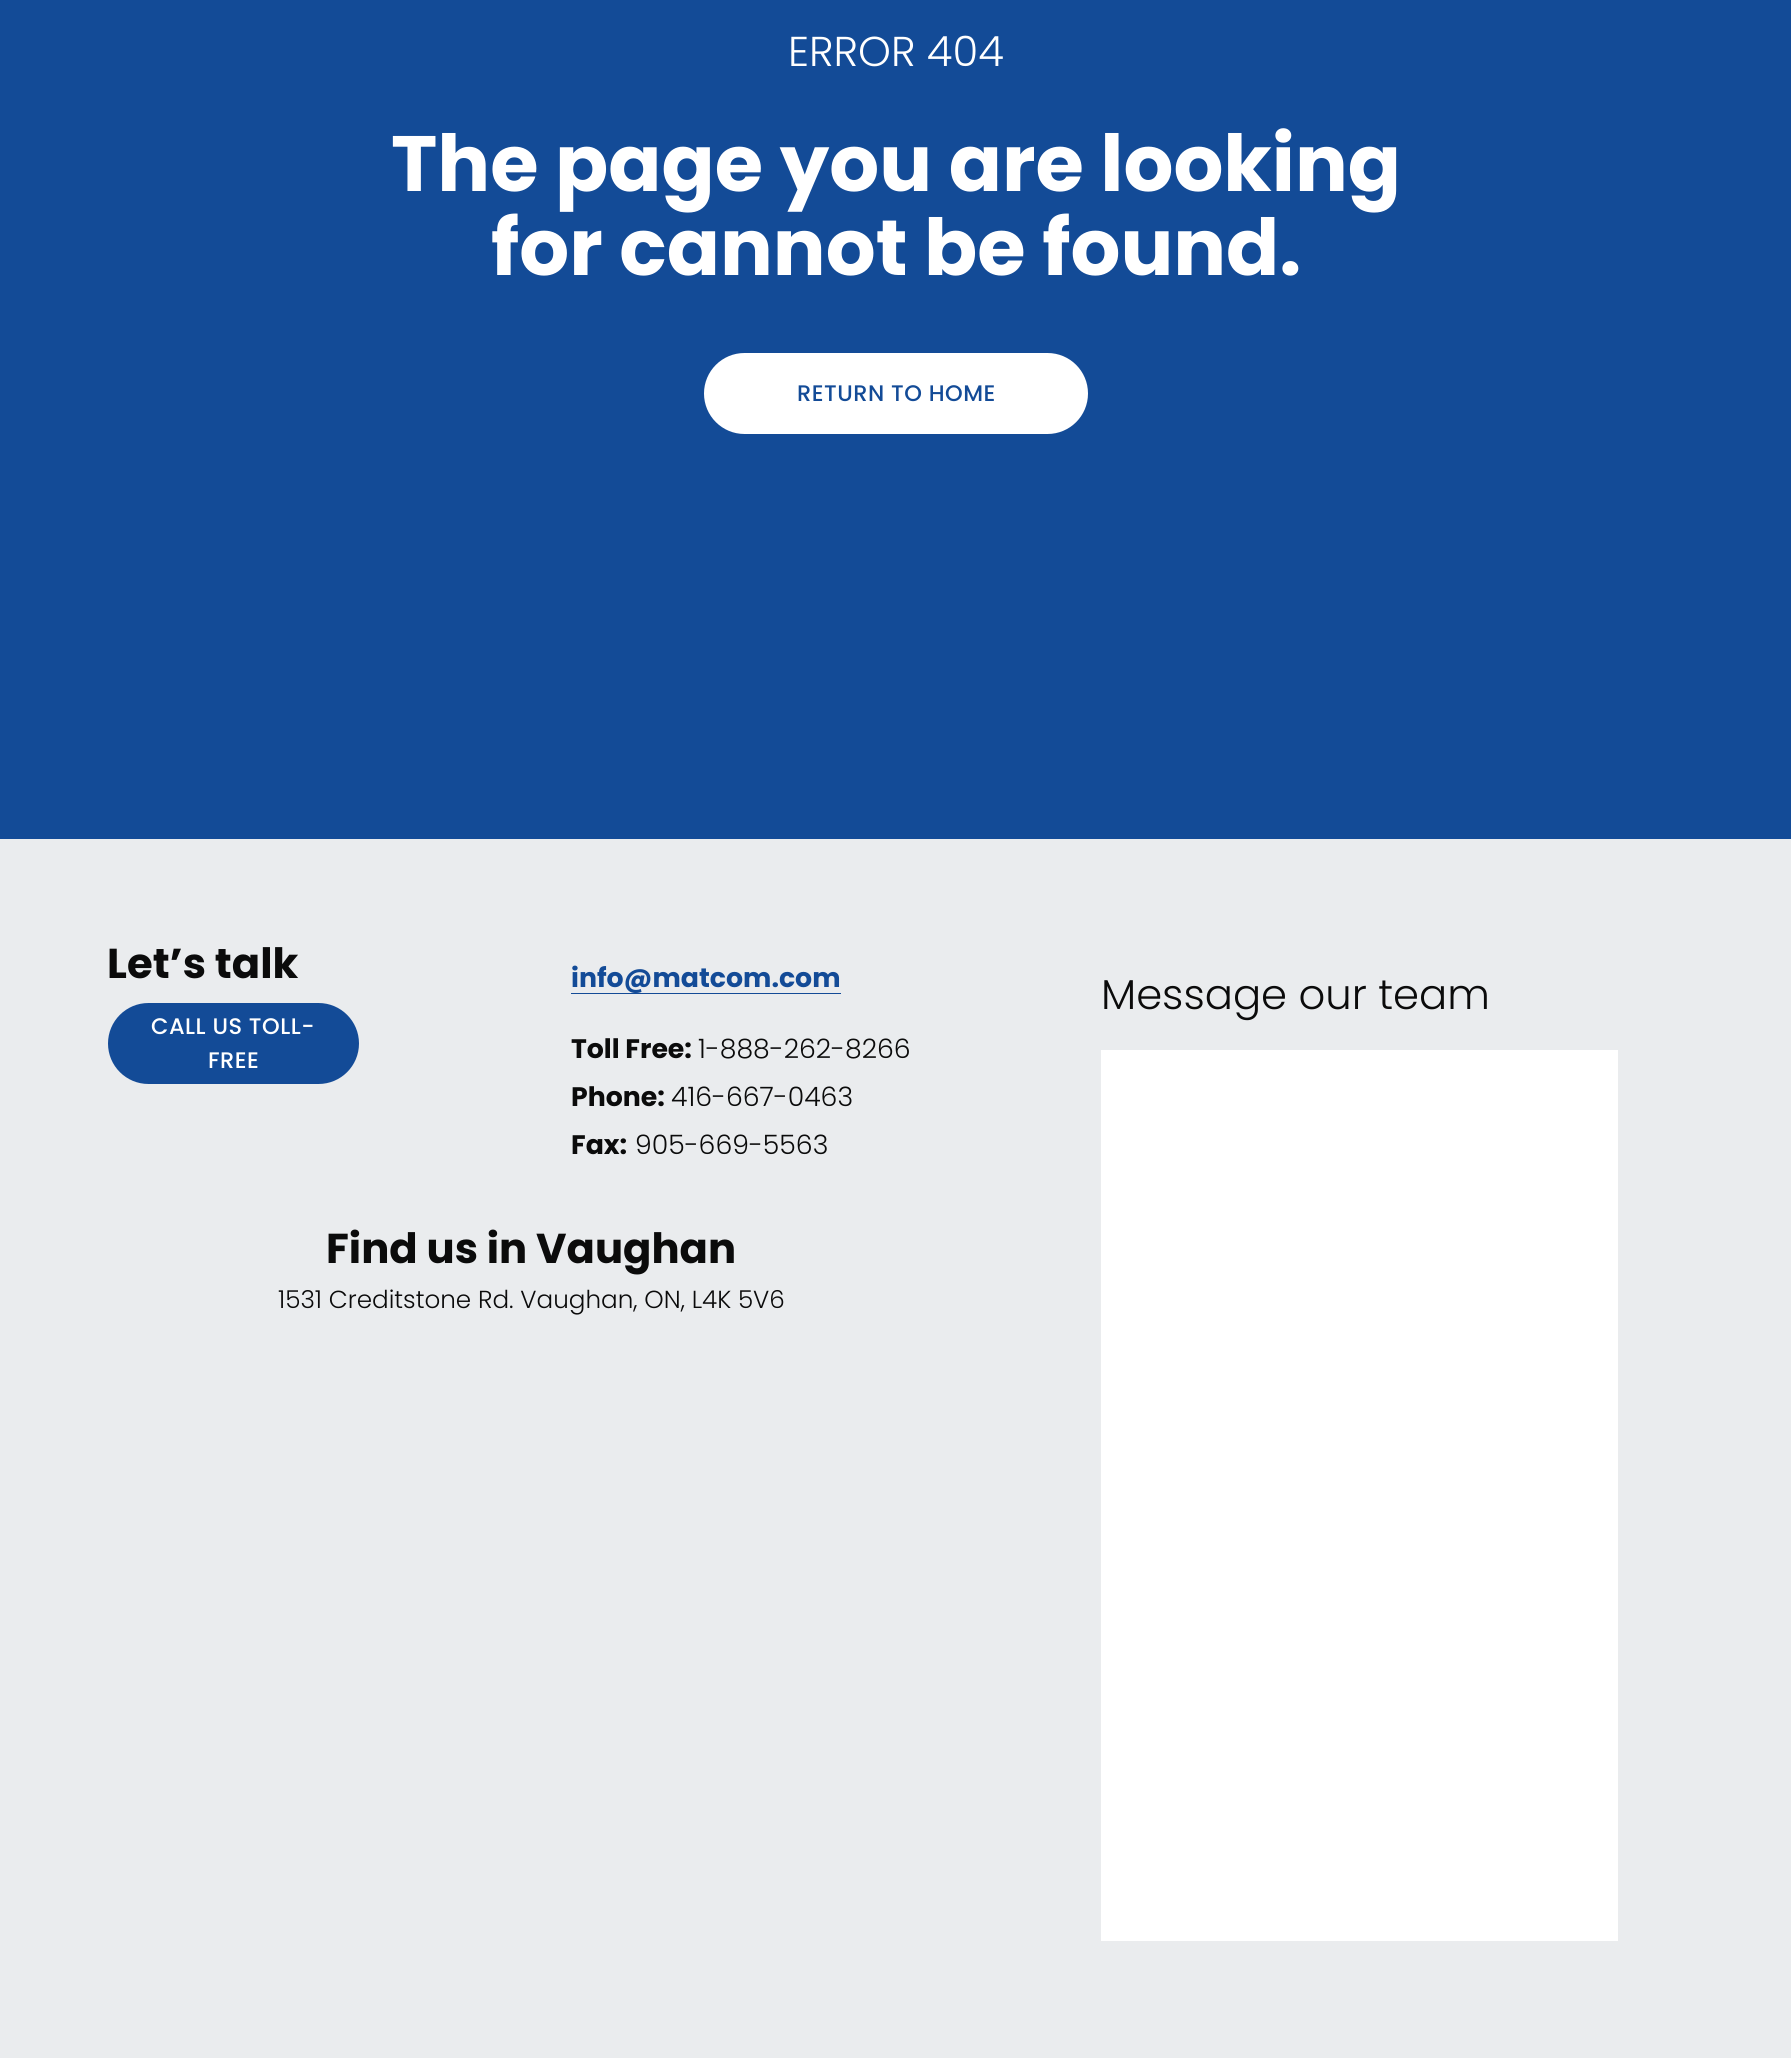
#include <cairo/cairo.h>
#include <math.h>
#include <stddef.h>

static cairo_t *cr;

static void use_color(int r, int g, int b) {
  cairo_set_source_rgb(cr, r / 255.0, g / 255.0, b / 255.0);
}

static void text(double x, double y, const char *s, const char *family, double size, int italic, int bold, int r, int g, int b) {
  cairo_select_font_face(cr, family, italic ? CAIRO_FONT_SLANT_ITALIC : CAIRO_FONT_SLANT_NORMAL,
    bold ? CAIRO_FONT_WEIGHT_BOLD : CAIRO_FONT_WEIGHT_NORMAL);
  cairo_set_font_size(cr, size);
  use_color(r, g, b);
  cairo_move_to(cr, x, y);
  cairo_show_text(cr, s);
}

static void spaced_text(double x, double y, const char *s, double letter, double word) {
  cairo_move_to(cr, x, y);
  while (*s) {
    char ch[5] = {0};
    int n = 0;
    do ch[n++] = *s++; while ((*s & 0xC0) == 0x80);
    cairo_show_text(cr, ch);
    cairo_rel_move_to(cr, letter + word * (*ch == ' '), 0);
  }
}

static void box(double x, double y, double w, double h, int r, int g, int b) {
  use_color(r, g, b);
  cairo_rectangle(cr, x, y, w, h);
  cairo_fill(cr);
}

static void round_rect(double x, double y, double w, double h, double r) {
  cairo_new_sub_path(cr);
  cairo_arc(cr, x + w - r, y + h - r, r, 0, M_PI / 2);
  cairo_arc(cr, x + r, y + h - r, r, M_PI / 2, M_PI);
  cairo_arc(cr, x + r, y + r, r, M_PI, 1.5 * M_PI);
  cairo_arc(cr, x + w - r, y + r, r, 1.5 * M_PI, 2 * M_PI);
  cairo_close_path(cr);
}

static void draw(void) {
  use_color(255, 255, 255);
  cairo_paint(cr);
  box(0, 0, 1791, 839, 19, 75, 151);
  use_color(255, 255, 255);
  round_rect(704, 353, 384, 81, 40.5);
  cairo_fill(cr);
  box(0, 839, 1791, 1219, 234, 236, 238);
  box(571, 993, 270, 1, 19, 75, 151);
  round_rect(108, 1003, 251, 81, 40.5);
  cairo_fill(cr);
  box(1101, 1050, 517, 891, 255, 255, 255);
  text(788, 66, "ERROR 404", "Poppins Light", 41.75, 0, 0, 255, 255, 255);
  text(391, 191, "The page you are looking", "Poppins", 78.4, 0, 1, 255, 255, 255);
  text(491, 275, "for cannot be found.", "Poppins", 78.4, 0, 1, 255, 255, 255);
  cairo_select_font_face(cr, "Poppins Medium", CAIRO_FONT_SLANT_NORMAL, CAIRO_FONT_WEIGHT_NORMAL);
  cairo_set_font_size(cr, 22.5);
  use_color(19, 75, 151);
  spaced_text(797, 401, "RETURN TO HOME", 0.5, 0);
  text(107, 978, "Let’s talk", "Poppins", 41.75, 0, 1, 11, 11, 11);
  text(571, 987, "info@matcom.com", "Poppins", 26.75, 0, 1, 19, 75, 151);
  text(571, 1058, "Toll Free:", "Poppins", 26.75, 0, 1, 11, 11, 11);
  text(698, 1058, "1-888-262-8266", "Poppins Light", 26.75, 0, 0, 11, 11, 11);
  text(571, 1106, "Phone:", "Poppins", 26.75, 0, 1, 11, 11, 11);
  text(671, 1106, "416-667-0463", "Poppins Light", 26.75, 0, 0, 11, 11, 11);
  text(571, 1154, "Fax:", "Poppins", 26.75, 0, 1, 11, 11, 11);
  text(635, 1154, "905-669-5563", "Poppins Light", 26.75, 0, 0, 11, 11, 11);
  text(1101, 1009, "Message our team", "Poppins Light", 41.75, 0, 0, 11, 11, 11);
  cairo_select_font_face(cr, "Poppins Medium", CAIRO_FONT_SLANT_NORMAL, CAIRO_FONT_WEIGHT_NORMAL);
  cairo_set_font_size(cr, 22.5);
  use_color(255, 255, 255);
  spaced_text(151, 1034, "CALL US TOLL-", 0.5, 0);
  spaced_text(208, 1068, "FREE", 0.5, 0);
  text(326, 1263, "Find us in Vaughan", "Poppins", 41.75, 0, 1, 11, 11, 11);
  text(278, 1308, "1531 Creditstone Rd. Vaughan, ON, L4K 5V6", "Poppins Light", 24.65, 0, 0, 11, 11, 11);
}

int main(void) {
  cairo_surface_t *surface = cairo_image_surface_create(CAIRO_FORMAT_RGB24, 1791, 2069);
  cr = cairo_create(surface);
  cairo_font_options_t *options = cairo_font_options_create();
  cairo_font_options_set_hint_metrics(options, CAIRO_HINT_METRICS_OFF);
  cairo_font_options_set_hint_style(options, CAIRO_HINT_STYLE_NONE);
  cairo_set_font_options(cr, options);
  cairo_set_miter_limit(cr, 4);
  draw();
  cairo_surface_write_to_png(surface, "out.png");
  cairo_font_options_destroy(options);
  cairo_destroy(cr);
  cairo_surface_destroy(surface);
  return 0;
}
